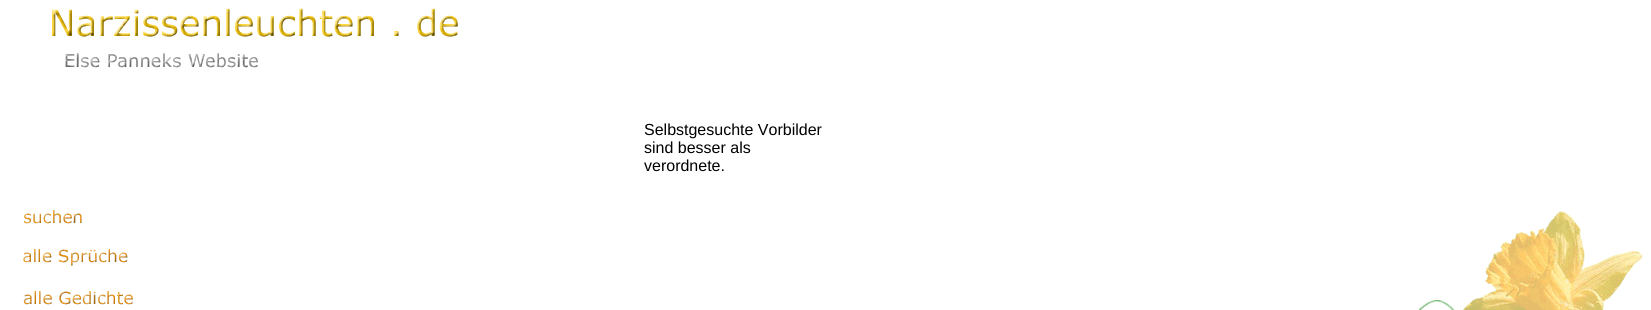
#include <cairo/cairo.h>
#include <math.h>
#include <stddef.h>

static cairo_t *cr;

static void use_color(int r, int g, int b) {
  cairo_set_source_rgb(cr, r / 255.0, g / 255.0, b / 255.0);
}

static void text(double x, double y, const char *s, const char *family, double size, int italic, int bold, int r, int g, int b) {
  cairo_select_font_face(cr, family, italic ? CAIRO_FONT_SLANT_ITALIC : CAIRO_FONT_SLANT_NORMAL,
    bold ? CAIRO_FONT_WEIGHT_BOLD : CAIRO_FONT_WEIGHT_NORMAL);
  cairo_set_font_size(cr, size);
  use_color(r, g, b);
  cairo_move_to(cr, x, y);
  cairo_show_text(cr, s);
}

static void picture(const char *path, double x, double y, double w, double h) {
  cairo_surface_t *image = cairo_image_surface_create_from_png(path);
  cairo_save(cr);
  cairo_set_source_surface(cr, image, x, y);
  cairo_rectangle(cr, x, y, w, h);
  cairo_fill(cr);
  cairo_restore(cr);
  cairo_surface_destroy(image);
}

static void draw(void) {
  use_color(255, 255, 255);
  cairo_paint(cr);
  picture("img_01.png", 52, 8, 406, 29);
  picture("img_02.png", 65, 53, 193, 15);
  picture("img_03.png", 24, 210, 58, 14);
  picture("img_04.png", 23, 249, 105, 17);
  picture("img_05.png", 23, 291, 110, 14);
  picture("img_06.png", 1418, 211, 225, 99);
  text(644, 135, "Selbstgesuchte Vorbilder", "Liberation Sans", 16, 0, 0, 0, 0, 0);
  text(644, 153, "sind besser als", "Liberation Sans", 16, 0, 0, 0, 0, 0);
  text(644, 171, "verordnete.", "Liberation Sans", 16, 0, 0, 0, 0, 0);
}

int main(void) {
  cairo_surface_t *surface = cairo_image_surface_create(CAIRO_FORMAT_RGB24, 1651, 310);
  cr = cairo_create(surface);
  cairo_font_options_t *options = cairo_font_options_create();
  cairo_font_options_set_hint_metrics(options, CAIRO_HINT_METRICS_OFF);
  cairo_font_options_set_hint_style(options, CAIRO_HINT_STYLE_NONE);
  cairo_set_font_options(cr, options);
  cairo_set_miter_limit(cr, 4);
  draw();
  cairo_surface_write_to_png(surface, "out.png");
  cairo_font_options_destroy(options);
  cairo_destroy(cr);
  cairo_surface_destroy(surface);
  return 0;
}
